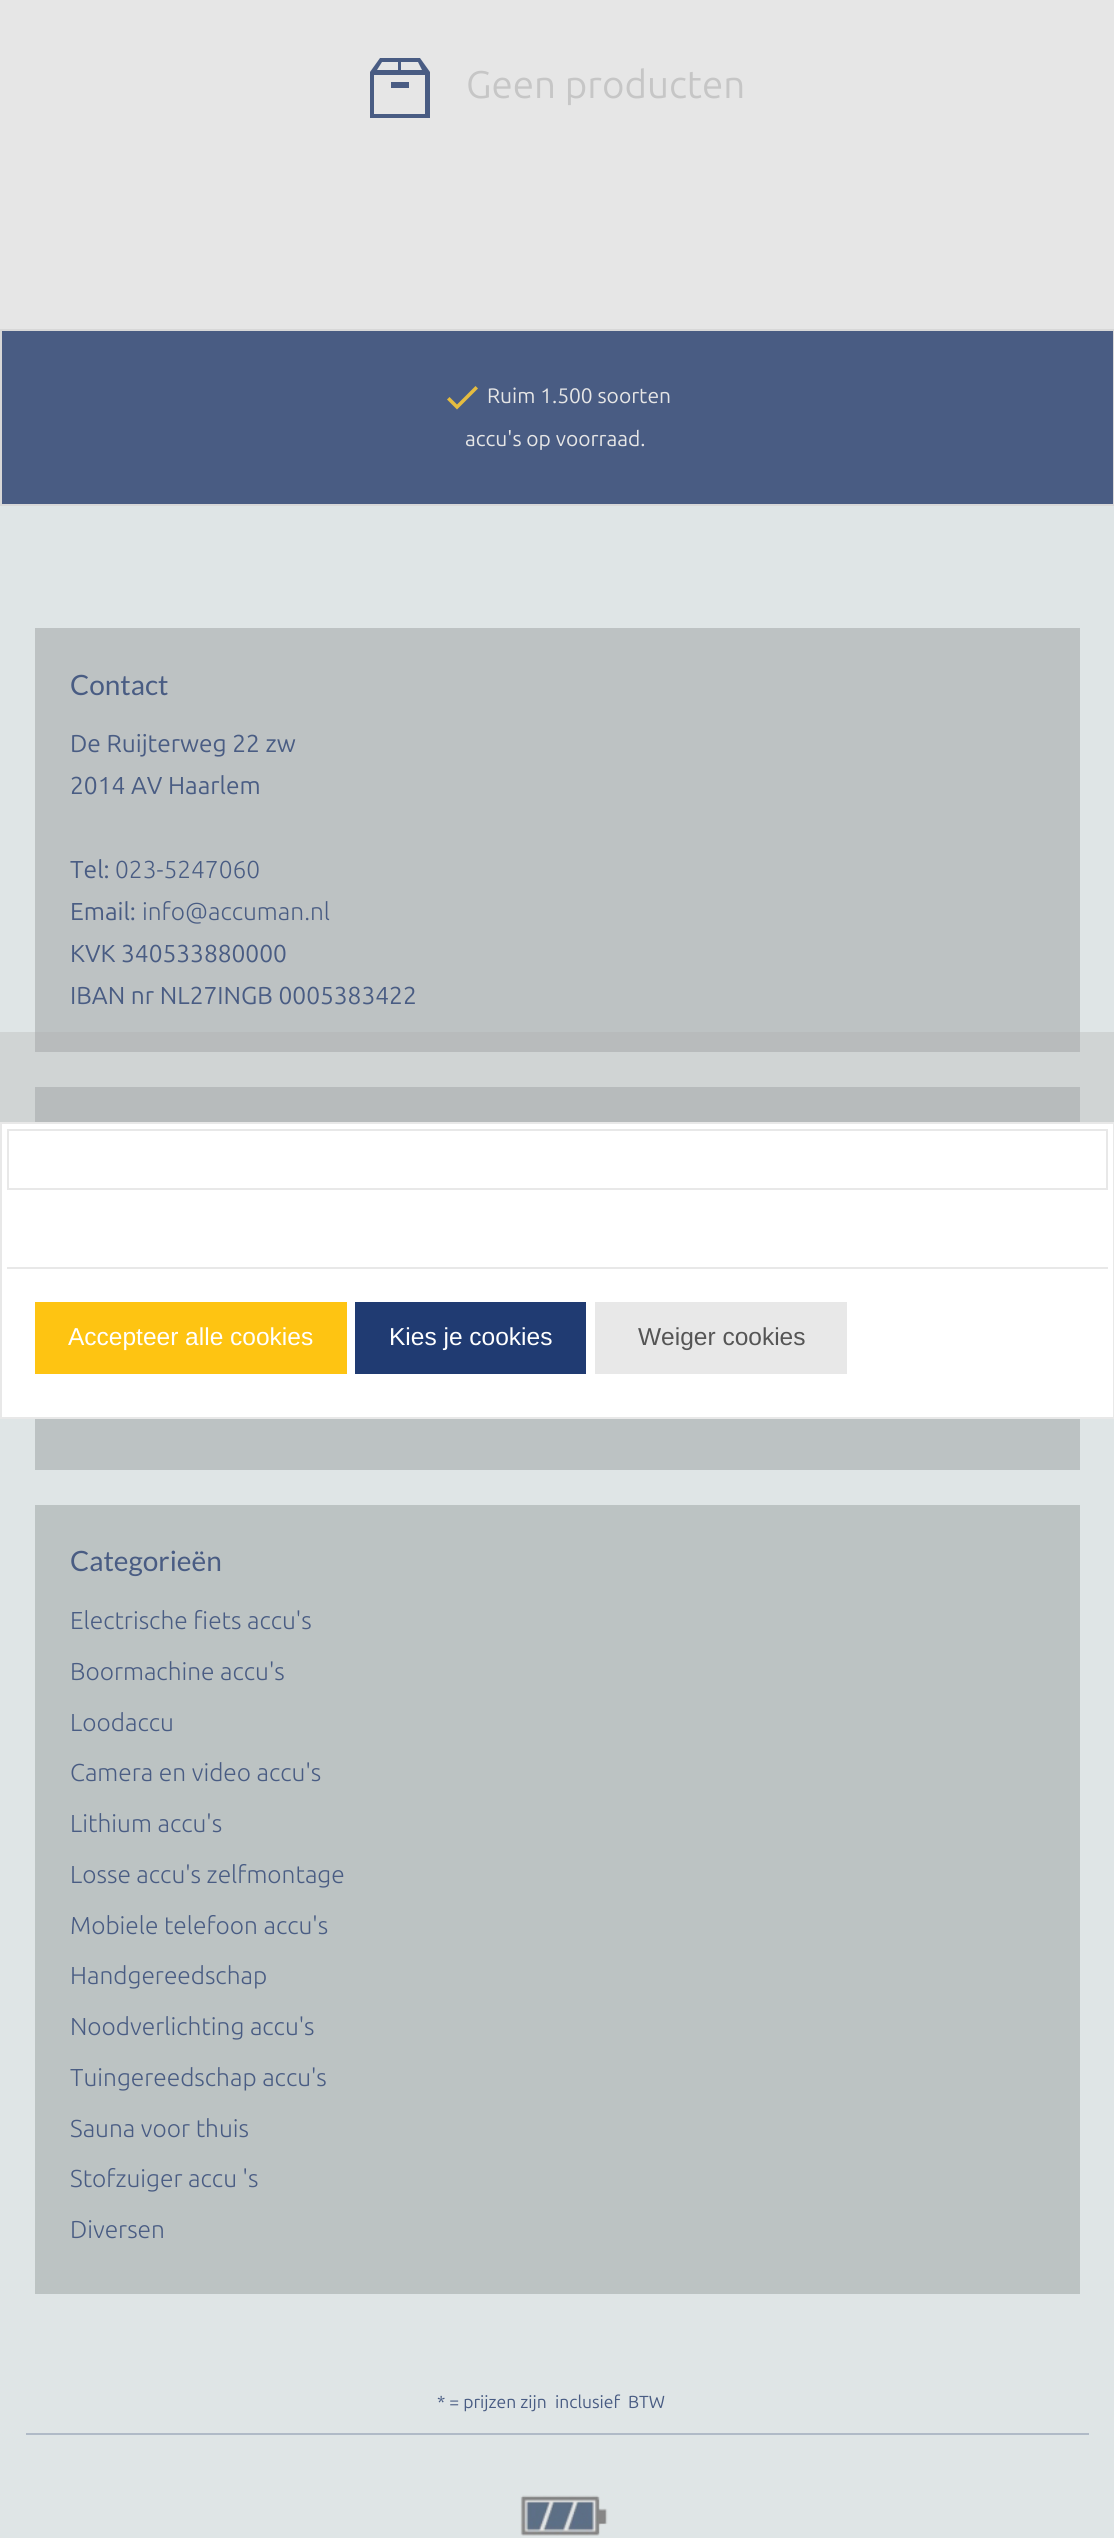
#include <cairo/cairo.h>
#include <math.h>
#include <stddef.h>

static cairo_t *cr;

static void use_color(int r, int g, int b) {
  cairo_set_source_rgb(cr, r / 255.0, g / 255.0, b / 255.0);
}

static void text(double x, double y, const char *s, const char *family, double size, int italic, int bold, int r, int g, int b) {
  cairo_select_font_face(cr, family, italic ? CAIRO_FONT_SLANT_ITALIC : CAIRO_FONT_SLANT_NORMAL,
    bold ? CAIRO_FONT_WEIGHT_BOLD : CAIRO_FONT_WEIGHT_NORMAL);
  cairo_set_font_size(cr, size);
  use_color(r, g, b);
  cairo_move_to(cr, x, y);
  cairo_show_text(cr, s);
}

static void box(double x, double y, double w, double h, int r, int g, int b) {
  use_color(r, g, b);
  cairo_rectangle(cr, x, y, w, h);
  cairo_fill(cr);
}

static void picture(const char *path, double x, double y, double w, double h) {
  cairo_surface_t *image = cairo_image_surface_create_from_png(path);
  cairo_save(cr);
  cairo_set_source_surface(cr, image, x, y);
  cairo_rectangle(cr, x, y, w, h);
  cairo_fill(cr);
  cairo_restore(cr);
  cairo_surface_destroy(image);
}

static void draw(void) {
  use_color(230, 230, 230);
  cairo_paint(cr);
  use_color(73, 92, 131);
  cairo_new_path(cr);
  cairo_move_to(cr, 380, 58);
  cairo_line_to(cr, 370, 72);
  cairo_line_to(cr, 370, 118);
  cairo_line_to(cr, 430, 118);
  cairo_line_to(cr, 430, 72);
  cairo_line_to(cr, 420, 58);
  cairo_close_path(cr);
  cairo_move_to(cr, 382, 62);
  cairo_line_to(cr, 398, 62);
  cairo_line_to(cr, 398, 70);
  cairo_line_to(cr, 377, 70);
  cairo_close_path(cr);
  cairo_move_to(cr, 401, 62);
  cairo_line_to(cr, 418, 62);
  cairo_line_to(cr, 422, 70);
  cairo_line_to(cr, 401, 70);
  cairo_close_path(cr);
  cairo_move_to(cr, 374, 75);
  cairo_line_to(cr, 425, 75);
  cairo_line_to(cr, 425, 114);
  cairo_line_to(cr, 374, 114);
  cairo_close_path(cr);
  cairo_move_to(cr, 391, 82);
  cairo_line_to(cr, 391, 88);
  cairo_line_to(cr, 409, 88);
  cairo_line_to(cr, 409, 82);
  cairo_close_path(cr);
  cairo_fill(cr);
  cairo_rectangle(cr, 1, 330, 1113, 175);
  cairo_fill_preserve(cr);
  use_color(216, 216, 216);
  cairo_stroke(cr);
  use_color(229, 188, 64);
  cairo_new_path(cr);
  cairo_move_to(cr, 457, 404.5);
  cairo_line_to(cr, 475.5, 386);
  cairo_line_to(cr, 478, 388.5);
  cairo_line_to(cr, 457, 409.5);
  cairo_line_to(cr, 447, 399.5);
  cairo_line_to(cr, 449.5, 397);
  cairo_close_path(cr);
  cairo_fill(cr);
  box(0, 506, 1114, 2032, 223, 229, 230);
  box(35, 628, 1045, 424, 189, 194, 195);
  box(35, 1087, 1045, 383, 188, 194, 195);
  box(35, 1505, 1045, 789, 188, 195, 195);
  box(26, 2433, 1063, 2, 176, 186, 199);
  picture("img_01.png", 520, 2495, 88, 41);
  cairo_set_source_rgba(cr, 0.671, 0.671, 0.671, 0.3);
  cairo_rectangle(cr, 0, 1032, 1114, 90);
  cairo_fill(cr);
  use_color(255, 255, 255);
  cairo_rectangle(cr, 1, 1123, 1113, 295);
  cairo_fill_preserve(cr);
  use_color(232, 232, 232);
  cairo_stroke(cr);
  cairo_rectangle(cr, 8, 1130, 1099, 59);
  cairo_stroke(cr);
  box(7, 1267, 1101, 2, 232, 232, 232);
  box(35, 1302, 312, 72, 254, 196, 18);
  box(355, 1302, 231, 72, 32, 59, 114);
  box(595, 1302, 252, 72, 232, 232, 232);
  text(466, 98, "Geen producten", "Ubuntu", 38.5, 0, 0, 198, 198, 198);
  text(487, 403, "Ruim 1.500 soorten", "Ubuntu", 21, 0, 0, 230, 230, 230);
  text(465, 446, "accu's op voorraad.", "Ubuntu", 21, 0, 0, 230, 230, 230);
  text(70, 695, "Contact", "Lato", 28, 0, 0, 73, 92, 131);
  text(70, 752, "De Ruijterweg 22 zw", "Ubuntu", 24.5, 0, 0, 73, 92, 131);
  text(70, 794, "2014 AV Haarlem", "Ubuntu", 24.5, 0, 0, 73, 92, 131);
  text(70, 878, "Tel:", "Ubuntu", 24.5, 0, 0, 73, 92, 131);
  text(115, 878, "023-5247060", "Ubuntu Light", 24.5, 0, 0, 73, 92, 131);
  text(70, 920, "Email:", "Ubuntu", 24.5, 0, 0, 73, 92, 131);
  text(142, 920, "info@accuman.nl", "Ubuntu Light", 24.5, 0, 0, 73, 92, 131);
  text(70, 962, "KVK 340533880000", "Ubuntu", 24.5, 0, 0, 73, 92, 131);
  text(70, 1004, "IBAN nr NL27INGB 0005383422", "Ubuntu", 24.5, 0, 0, 73, 92, 131);
  text(70, 1571, "Categorieën", "Lato", 28, 0, 0, 73, 92, 131);
  text(70, 1629, "Electrische fiets accu's", "Ubuntu Light", 24.5, 0, 0, 73, 92, 131);
  text(70, 1680, "Boormachine accu's", "Ubuntu Light", 24.5, 0, 0, 73, 92, 131);
  text(70, 1731, "Loodaccu", "Ubuntu Light", 24.5, 0, 0, 73, 92, 131);
  text(70, 1781, "Camera en video accu's", "Ubuntu Light", 24.5, 0, 0, 73, 92, 131);
  text(70, 1832, "Lithium accu's", "Ubuntu Light", 24.5, 0, 0, 73, 92, 131);
  text(70, 1883, "Losse accu's zelfmontage", "Ubuntu Light", 24.5, 0, 0, 73, 92, 131);
  text(70, 1934, "Mobiele telefoon accu's", "Ubuntu Light", 24.5, 0, 0, 73, 92, 131);
  text(70, 1984, "Handgereedschap", "Ubuntu Light", 24.5, 0, 0, 73, 92, 131);
  text(70, 2035, "Noodverlichting accu's", "Ubuntu Light", 24.5, 0, 0, 73, 92, 131);
  text(70, 2086, "Tuingereedschap accu's", "Ubuntu Light", 24.5, 0, 0, 73, 92, 131);
  text(70, 2137, "Sauna voor thuis", "Ubuntu Light", 24.5, 0, 0, 73, 92, 131);
  text(70, 2187, "Stofzuiger accu 's", "Ubuntu Light", 24.5, 0, 0, 73, 92, 131);
  text(70, 2238, "Diversen", "Ubuntu Light", 24.5, 0, 0, 73, 92, 131);
  text(437, 2408, "* = prijzen zijn", "Ubuntu", 17.5, 0, 0, 73, 92, 131);
  text(555, 2408, "inclusief", "Ubuntu", 17.5, 0, 0, 73, 92, 131);
  text(628, 2408, "BTW", "Ubuntu", 17.5, 0, 0, 73, 92, 131);
  text(68, 1345, "Accepteer alle cookies", "Liberation Sans", 24.5, 0, 0, 255, 255, 255);
  text(389, 1345, "Kies je cookies", "Liberation Sans", 24.5, 0, 0, 255, 255, 255);
  text(638, 1345, "Weiger cookies", "Liberation Sans", 24.5, 0, 0, 85, 85, 85);
}

int main(void) {
  cairo_surface_t *surface = cairo_image_surface_create(CAIRO_FORMAT_RGB24, 1114, 2538);
  cr = cairo_create(surface);
  cairo_font_options_t *options = cairo_font_options_create();
  cairo_font_options_set_hint_metrics(options, CAIRO_HINT_METRICS_OFF);
  cairo_font_options_set_hint_style(options, CAIRO_HINT_STYLE_NONE);
  cairo_set_font_options(cr, options);
  cairo_set_miter_limit(cr, 4);
  draw();
  cairo_surface_write_to_png(surface, "out.png");
  cairo_font_options_destroy(options);
  cairo_destroy(cr);
  cairo_surface_destroy(surface);
  return 0;
}
